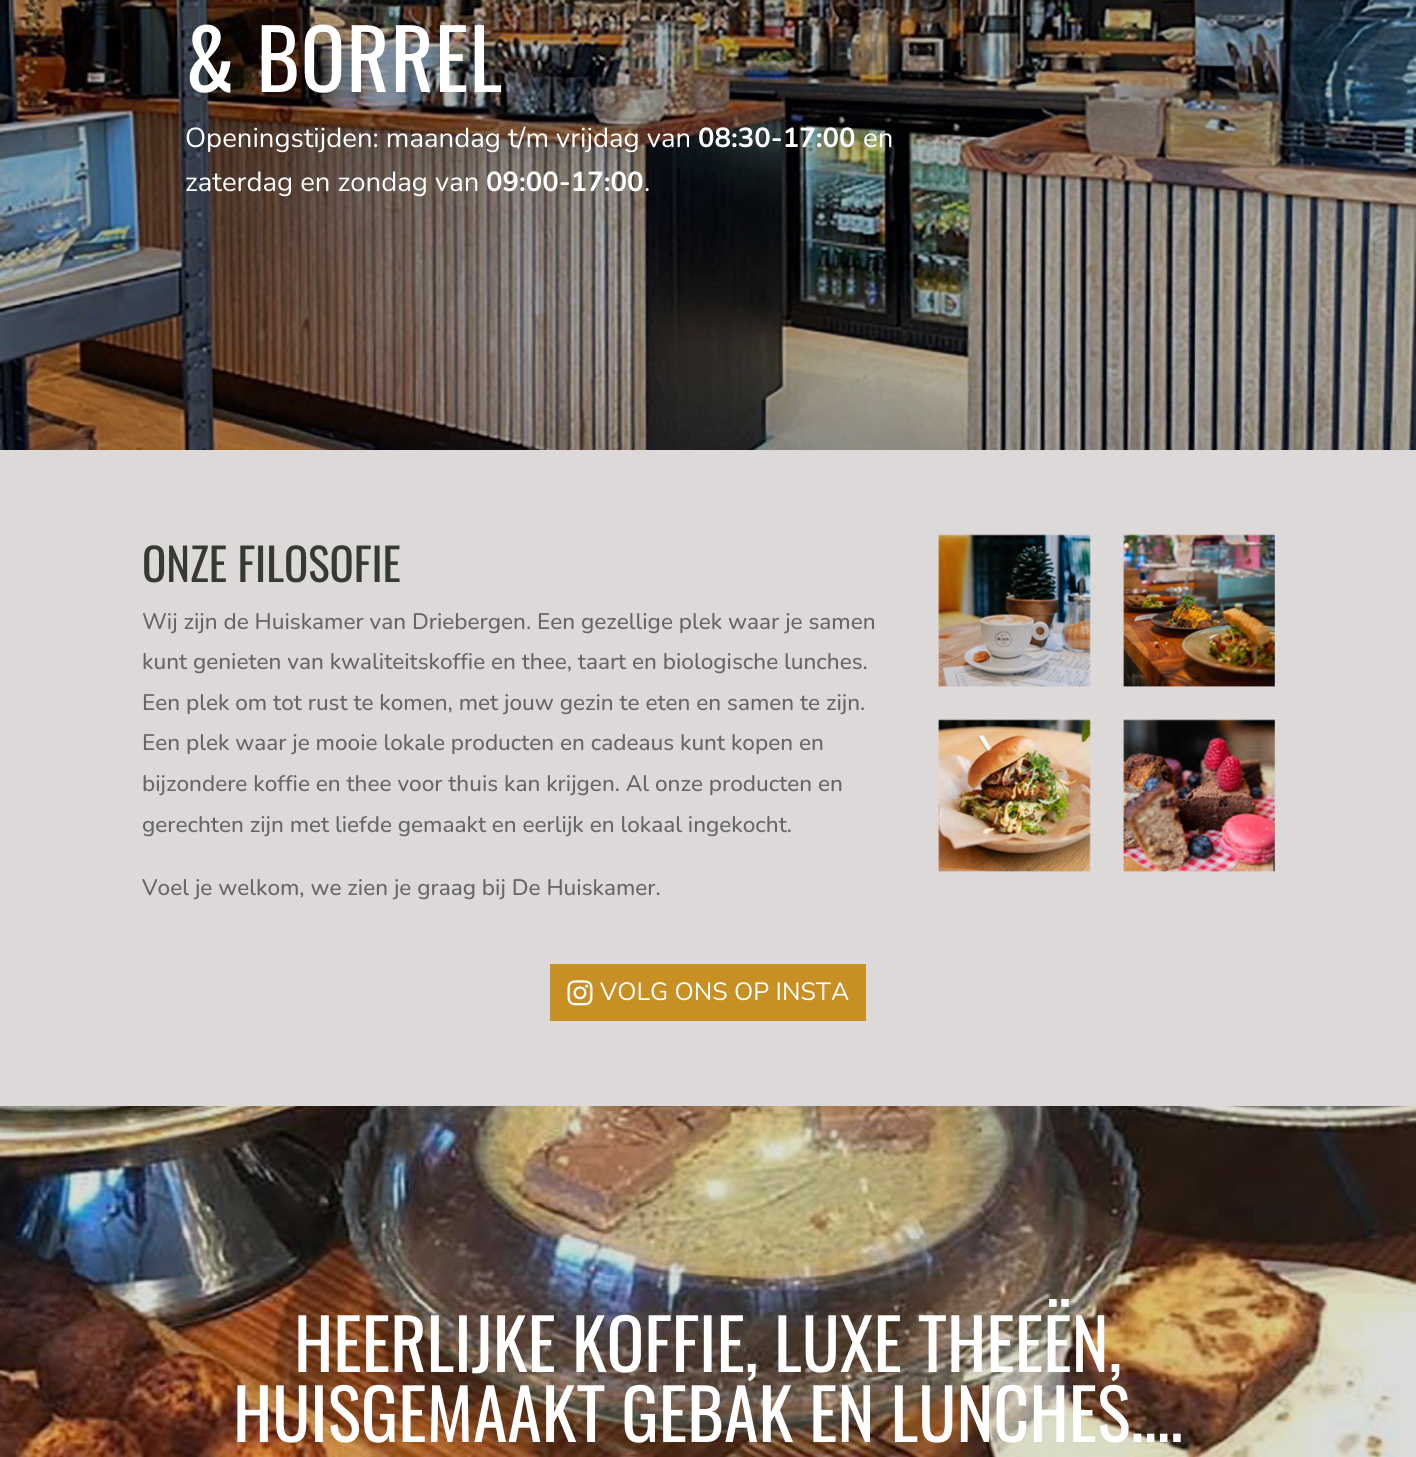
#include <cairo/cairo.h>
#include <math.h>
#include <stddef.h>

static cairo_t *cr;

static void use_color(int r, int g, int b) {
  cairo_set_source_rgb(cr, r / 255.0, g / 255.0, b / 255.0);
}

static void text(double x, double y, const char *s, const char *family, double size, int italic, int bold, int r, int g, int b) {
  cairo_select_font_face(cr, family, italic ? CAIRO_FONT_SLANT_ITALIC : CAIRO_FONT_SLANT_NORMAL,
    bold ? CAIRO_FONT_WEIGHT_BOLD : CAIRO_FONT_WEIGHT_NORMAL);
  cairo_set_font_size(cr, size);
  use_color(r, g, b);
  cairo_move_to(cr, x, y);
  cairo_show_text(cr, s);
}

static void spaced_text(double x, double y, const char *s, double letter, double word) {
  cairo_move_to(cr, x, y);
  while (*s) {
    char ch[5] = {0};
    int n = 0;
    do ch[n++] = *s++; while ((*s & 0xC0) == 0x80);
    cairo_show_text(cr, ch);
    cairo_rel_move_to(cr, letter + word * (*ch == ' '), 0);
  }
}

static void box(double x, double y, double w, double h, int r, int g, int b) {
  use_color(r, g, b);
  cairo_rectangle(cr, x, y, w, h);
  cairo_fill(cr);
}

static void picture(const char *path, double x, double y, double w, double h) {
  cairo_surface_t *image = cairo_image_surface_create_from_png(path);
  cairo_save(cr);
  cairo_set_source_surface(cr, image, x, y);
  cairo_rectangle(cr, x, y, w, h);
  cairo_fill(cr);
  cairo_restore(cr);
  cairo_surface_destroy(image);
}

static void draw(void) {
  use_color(255, 255, 255);
  cairo_paint(cr);
  picture("img_01.png", 0, 0, 1416, 450);
  box(0, 450, 1416, 656, 221, 217, 217);
  picture("img_02.png", 938, 534, 337, 338);
  box(550, 964, 316, 57, 200, 143, 36);
  picture("img_03.png", 567, 980, 26, 26);
  picture("img_04.png", 0, 1106, 1416, 351);
  cairo_select_font_face(cr, "Oswald", CAIRO_FONT_SLANT_NORMAL, CAIRO_FONT_WEIGHT_NORMAL);
  cairo_set_font_size(cr, 82.5);
  use_color(255, 255, 255);
  spaced_text(185, 92, "& BORREL", 1.25, 0);
  text(185, 147, "Openingstijden: maandag t/m vrijdag van", "Nunito", 27.5, 0, 0, 255, 255, 255);
  text(698, 147, "08:30-17:00", "Nunito", 27.5, 0, 1, 255, 255, 255);
  text(863, 147, "en", "Nunito", 27.5, 0, 0, 255, 255, 255);
  text(185, 191, "zaterdag en zondag van", "Nunito", 27.5, 0, 0, 255, 255, 255);
  text(486, 191, "09:00-17:00", "Nunito", 27.5, 0, 1, 255, 255, 255);
  text(644, 191, ".", "Nunito", 27.5, 0, 0, 255, 255, 255);
  text(142, 582, "ONZE FILOSOFIE", "Oswald", 45, 0, 0, 54, 58, 51);
  text(142, 629, "Wij zijn de Huiskamer van Driebergen. Een gezellige plek waar je samen", "Nunito Medium", 22.5, 0, 0, 102, 102, 102);
  text(142, 669, "kunt genieten van kwaliteitskoffie en thee, taart en biologische lunches.", "Nunito Medium", 22.5, 0, 0, 102, 102, 102);
  text(142, 710, "Een plek om tot rust te komen, met jouw gezin te eten en samen te zijn.", "Nunito Medium", 22.5, 0, 0, 102, 102, 102);
  text(142, 750, "Een plek waar je mooie lokale producten en cadeaus kunt kopen en", "Nunito Medium", 22.5, 0, 0, 102, 102, 102);
  text(142, 791, "bijzondere koffie en thee voor thuis kan krijgen. Al onze producten en", "Nunito Medium", 22.5, 0, 0, 102, 102, 102);
  text(142, 832, "gerechten zijn met liefde gemaakt en eerlijk en lokaal ingekocht.", "Nunito Medium", 22.5, 0, 0, 102, 102, 102);
  text(142, 895, "Voel je welkom, we zien je graag bij De Huiskamer.", "Nunito Medium", 22.5, 0, 0, 102, 102, 102);
  text(600, 1000, "VOLG ONS OP INSTA", "Nunito", 25, 0, 0, 255, 255, 255);
  text(294, 1372, "HEERLIJKE KOFFIE, LUXE THEEËN,", "Oswald", 70, 0, 0, 255, 255, 255);
  text(233, 1442, "HUISGEMAAKT GEBAK EN LUNCHES....", "Oswald", 70, 0, 0, 255, 255, 255);
}

int main(void) {
  cairo_surface_t *surface = cairo_image_surface_create(CAIRO_FORMAT_RGB24, 1416, 1457);
  cr = cairo_create(surface);
  cairo_font_options_t *options = cairo_font_options_create();
  cairo_font_options_set_hint_metrics(options, CAIRO_HINT_METRICS_OFF);
  cairo_font_options_set_hint_style(options, CAIRO_HINT_STYLE_NONE);
  cairo_set_font_options(cr, options);
  cairo_set_miter_limit(cr, 4);
  draw();
  cairo_surface_write_to_png(surface, "out.png");
  cairo_font_options_destroy(options);
  cairo_destroy(cr);
  cairo_surface_destroy(surface);
  return 0;
}
